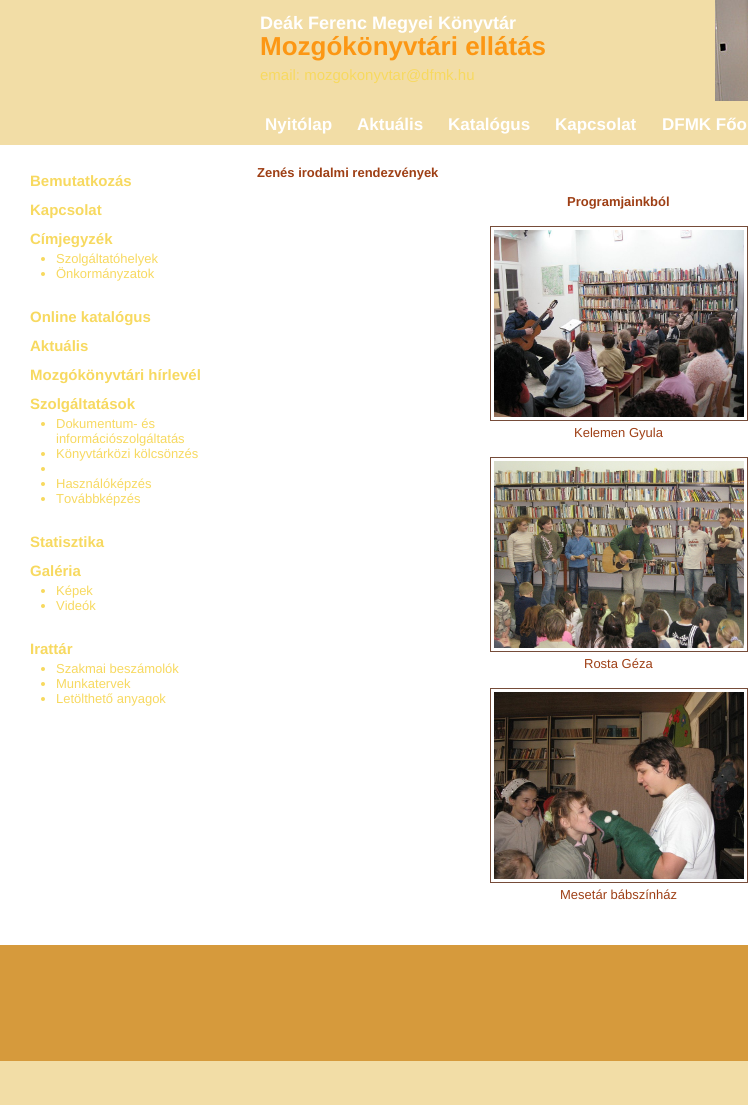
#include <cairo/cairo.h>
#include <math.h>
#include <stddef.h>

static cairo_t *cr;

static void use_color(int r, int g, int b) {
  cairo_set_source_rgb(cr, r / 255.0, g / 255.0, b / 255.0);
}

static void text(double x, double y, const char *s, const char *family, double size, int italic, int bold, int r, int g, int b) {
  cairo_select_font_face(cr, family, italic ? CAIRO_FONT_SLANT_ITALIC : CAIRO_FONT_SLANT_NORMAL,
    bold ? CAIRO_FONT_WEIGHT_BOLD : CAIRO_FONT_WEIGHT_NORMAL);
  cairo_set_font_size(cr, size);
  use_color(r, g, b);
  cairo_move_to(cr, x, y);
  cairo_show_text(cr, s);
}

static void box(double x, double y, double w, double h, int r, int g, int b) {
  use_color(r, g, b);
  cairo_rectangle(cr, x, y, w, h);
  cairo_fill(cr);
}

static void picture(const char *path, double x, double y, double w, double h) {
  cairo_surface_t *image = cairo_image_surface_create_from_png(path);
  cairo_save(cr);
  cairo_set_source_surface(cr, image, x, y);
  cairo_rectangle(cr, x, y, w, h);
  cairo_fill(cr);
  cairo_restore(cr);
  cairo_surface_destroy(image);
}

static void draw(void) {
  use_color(242, 221, 166);
  cairo_paint(cr);
  picture("img_01.png", 715, 0, 33, 101);
  box(0, 145, 748, 800, 255, 255, 255);
  use_color(247, 217, 96);
  cairo_arc(cr, 43, 259, 2, 0, 2 * M_PI);
  cairo_fill(cr);
  cairo_arc(cr, 43, 274, 2, 0, 2 * M_PI);
  cairo_fill(cr);
  cairo_arc(cr, 43, 424, 2, 0, 2 * M_PI);
  cairo_fill(cr);
  cairo_arc(cr, 43, 454, 2, 0, 2 * M_PI);
  cairo_fill(cr);
  cairo_arc(cr, 43, 469, 2, 0, 2 * M_PI);
  cairo_fill(cr);
  cairo_arc(cr, 43, 484, 2, 0, 2 * M_PI);
  cairo_fill(cr);
  cairo_arc(cr, 43, 499, 2, 0, 2 * M_PI);
  cairo_fill(cr);
  cairo_arc(cr, 43, 591, 2, 0, 2 * M_PI);
  cairo_fill(cr);
  cairo_arc(cr, 43, 606, 2, 0, 2 * M_PI);
  cairo_fill(cr);
  cairo_arc(cr, 43, 669, 2, 0, 2 * M_PI);
  cairo_fill(cr);
  cairo_arc(cr, 43, 684, 2, 0, 2 * M_PI);
  cairo_fill(cr);
  cairo_arc(cr, 43, 699, 2, 0, 2 * M_PI);
  cairo_fill(cr);
  cairo_rectangle(cr, 490.5, 226.5, 257, 194);
  use_color(118, 76, 57);
  cairo_set_line_width(cr, 1);
  cairo_stroke(cr);
  picture("img_02.png", 494, 230, 250, 187);
  cairo_rectangle(cr, 490.5, 457.5, 257, 194);
  cairo_stroke(cr);
  picture("img_03.png", 494, 461, 250, 187);
  cairo_rectangle(cr, 490.5, 688.5, 257, 194);
  cairo_stroke(cr);
  picture("img_04.png", 494, 692, 250, 187);
  box(0, 945, 748, 116, 214, 154, 60);
  text(260, 29, "Deák Ferenc Megyei Könyvtár", "Liberation Sans", 18, 0, 1, 255, 255, 255);
  text(260, 55, "Mozgókönyvtári ellátás", "Liberation Sans", 26, 0, 1, 252, 151, 20);
  text(260, 80, "email: mozgokonyvtar@dfmk.hu", "Liberation Sans", 15, 0, 0, 247, 217, 96);
  text(265, 130, "Nyitólap", "Liberation Sans", 17, 0, 1, 255, 255, 255);
  text(357, 130, "Aktuális", "Liberation Sans", 17, 0, 1, 255, 255, 255);
  text(448, 130, "Katalógus", "Liberation Sans", 17, 0, 1, 255, 255, 255);
  text(555, 130, "Kapcsolat", "Liberation Sans", 17, 0, 1, 255, 255, 255);
  text(662, 130, "DFMK Főo", "Liberation Sans", 17, 0, 1, 255, 255, 255);
  text(30, 186, "Bemutatkozás", "Liberation Sans", 15, 0, 1, 247, 217, 96);
  text(30, 215, "Kapcsolat", "Liberation Sans", 15, 0, 1, 247, 217, 96);
  text(30, 244, "Címjegyzék", "Liberation Sans", 15, 0, 1, 247, 217, 96);
  text(56, 263, "Szolgáltatóhelyek", "Liberation Sans", 13, 0, 0, 247, 217, 96);
  text(56, 278, "Önkormányzatok", "Liberation Sans", 13, 0, 0, 247, 217, 96);
  text(30, 322, "Online katalógus", "Liberation Sans", 15, 0, 1, 247, 217, 96);
  text(30, 351, "Aktuális", "Liberation Sans", 15, 0, 1, 247, 217, 96);
  text(30, 380, "Mozgókönyvtári hírlevél", "Liberation Sans", 15, 0, 1, 247, 217, 96);
  text(30, 409, "Szolgáltatások", "Liberation Sans", 15, 0, 1, 247, 217, 96);
  text(56, 428, "Dokumentum- és", "Liberation Sans", 13, 0, 0, 247, 217, 96);
  text(56, 443, "információszolgáltatás", "Liberation Sans", 13, 0, 0, 247, 217, 96);
  text(56, 458, "Könyvtárközi kölcsönzés", "Liberation Sans", 13, 0, 0, 247, 217, 96);
  text(56, 488, "Használóképzés", "Liberation Sans", 13, 0, 0, 247, 217, 96);
  text(56, 503, "Továbbképzés", "Liberation Sans", 13, 0, 0, 247, 217, 96);
  text(30, 547, "Statisztika", "Liberation Sans", 15, 0, 1, 247, 217, 96);
  text(30, 576, "Galéria", "Liberation Sans", 15, 0, 1, 247, 217, 96);
  text(56, 595, "Képek", "Liberation Sans", 13, 0, 0, 247, 217, 96);
  text(56, 610, "Videók", "Liberation Sans", 13, 0, 0, 247, 217, 96);
  text(30, 654, "Irattár", "Liberation Sans", 15, 0, 1, 247, 217, 96);
  text(56, 673, "Szakmai beszámolók", "Liberation Sans", 13, 0, 0, 247, 217, 96);
  text(56, 688, "Munkatervek", "Liberation Sans", 13, 0, 0, 247, 217, 96);
  text(56, 703, "Letölthető anyagok", "Liberation Sans", 13, 0, 0, 247, 217, 96);
  text(257, 177, "Zenés irodalmi rendezvények", "Liberation Sans", 13, 0, 1, 158, 63, 21);
  text(567, 206, "Programjainkból", "Liberation Sans", 13, 0, 1, 158, 63, 21);
  text(574, 437, "Kelemen Gyula", "Liberation Sans", 13, 0, 0, 158, 63, 21);
  text(584, 668, "Rosta Géza", "Liberation Sans", 13, 0, 0, 158, 63, 21);
  text(560, 899, "Mesetár bábszínház", "Liberation Sans", 13, 0, 0, 158, 63, 21);
}

int main(void) {
  cairo_surface_t *surface = cairo_image_surface_create(CAIRO_FORMAT_RGB24, 748, 1105);
  cr = cairo_create(surface);
  cairo_font_options_t *options = cairo_font_options_create();
  cairo_font_options_set_hint_metrics(options, CAIRO_HINT_METRICS_OFF);
  cairo_font_options_set_hint_style(options, CAIRO_HINT_STYLE_NONE);
  cairo_set_font_options(cr, options);
  cairo_set_miter_limit(cr, 4);
  draw();
  cairo_surface_write_to_png(surface, "out.png");
  cairo_font_options_destroy(options);
  cairo_destroy(cr);
  cairo_surface_destroy(surface);
  return 0;
}
